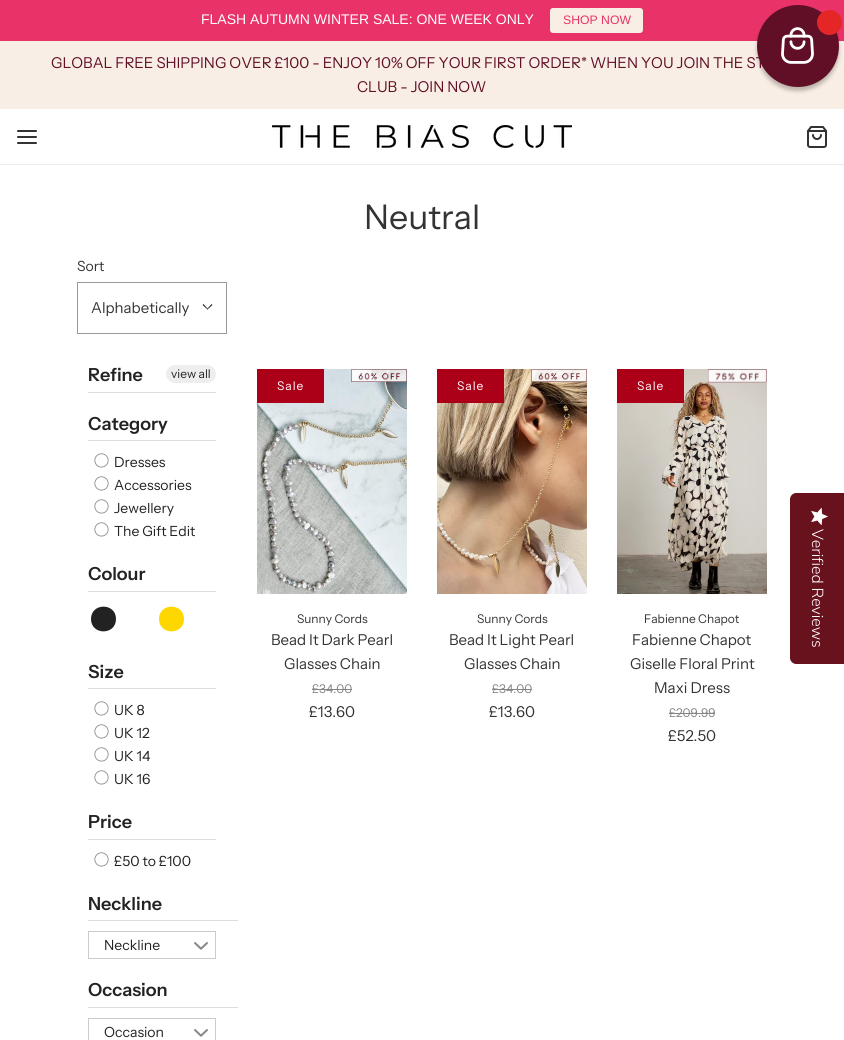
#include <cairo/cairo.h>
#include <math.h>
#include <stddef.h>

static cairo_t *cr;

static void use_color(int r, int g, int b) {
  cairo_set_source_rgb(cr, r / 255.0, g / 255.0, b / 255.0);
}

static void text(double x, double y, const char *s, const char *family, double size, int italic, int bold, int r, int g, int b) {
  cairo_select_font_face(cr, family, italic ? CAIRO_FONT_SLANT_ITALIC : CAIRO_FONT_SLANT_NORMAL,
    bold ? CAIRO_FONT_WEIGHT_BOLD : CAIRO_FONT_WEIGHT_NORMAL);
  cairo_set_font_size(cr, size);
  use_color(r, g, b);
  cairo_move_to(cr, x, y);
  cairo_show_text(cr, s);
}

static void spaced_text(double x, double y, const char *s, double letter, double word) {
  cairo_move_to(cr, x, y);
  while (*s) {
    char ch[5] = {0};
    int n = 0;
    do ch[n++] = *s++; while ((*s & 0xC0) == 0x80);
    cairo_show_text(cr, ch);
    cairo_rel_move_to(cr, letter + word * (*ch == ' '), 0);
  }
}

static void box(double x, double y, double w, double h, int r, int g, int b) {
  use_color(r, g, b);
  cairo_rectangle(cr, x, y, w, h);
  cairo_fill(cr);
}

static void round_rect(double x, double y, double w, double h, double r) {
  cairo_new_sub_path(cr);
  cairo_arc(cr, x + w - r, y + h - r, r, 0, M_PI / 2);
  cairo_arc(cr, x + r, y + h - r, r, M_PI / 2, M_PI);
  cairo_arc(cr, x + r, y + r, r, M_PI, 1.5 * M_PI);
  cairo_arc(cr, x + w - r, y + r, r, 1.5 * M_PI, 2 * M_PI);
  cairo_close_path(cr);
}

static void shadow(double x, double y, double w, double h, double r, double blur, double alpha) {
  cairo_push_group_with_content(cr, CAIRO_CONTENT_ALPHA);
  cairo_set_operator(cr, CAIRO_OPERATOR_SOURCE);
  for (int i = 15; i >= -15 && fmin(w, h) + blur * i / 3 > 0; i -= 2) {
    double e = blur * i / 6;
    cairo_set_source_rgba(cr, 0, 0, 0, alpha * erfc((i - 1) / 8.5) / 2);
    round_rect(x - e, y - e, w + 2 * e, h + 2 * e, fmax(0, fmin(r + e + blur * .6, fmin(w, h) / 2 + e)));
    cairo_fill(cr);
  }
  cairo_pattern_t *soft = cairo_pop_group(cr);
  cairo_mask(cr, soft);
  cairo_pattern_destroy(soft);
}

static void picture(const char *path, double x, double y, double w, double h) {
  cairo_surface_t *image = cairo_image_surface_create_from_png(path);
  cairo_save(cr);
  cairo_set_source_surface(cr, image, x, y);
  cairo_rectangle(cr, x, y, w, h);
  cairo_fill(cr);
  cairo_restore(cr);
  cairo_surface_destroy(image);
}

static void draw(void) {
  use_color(255, 255, 255);
  cairo_paint(cr);
  box(0, 0, 844, 41, 233, 50, 104);
  use_color(249, 238, 229);
  round_rect(550, 8, 93, 25, 3);
  cairo_fill(cr);
  box(0, 41, 844, 68, 249, 238, 229);
  box(0, 164, 844, 1, 235, 235, 235);
  cairo_new_path(cr);
  cairo_move_to(cr, 18, 137);
  cairo_line_to(cr, 36, 137);
  cairo_move_to(cr, 18, 131);
  cairo_line_to(cr, 36, 131);
  cairo_move_to(cr, 18, 143);
  cairo_line_to(cr, 36, 143);
  use_color(51, 51, 51);
  cairo_set_line_cap(cr, CAIRO_LINE_CAP_ROUND);
  cairo_set_line_join(cr, CAIRO_LINE_JOIN_ROUND);
  cairo_stroke(cr);
  picture("img_01.png", 272, 125, 300, 23);
  picture("img_02.png", 807, 126, 20, 22);
  cairo_rectangle(cr, 77.5, 282.5, 149, 51);
  use_color(153, 153, 153);
  cairo_set_line_width(cr, 1);
  cairo_set_line_cap(cr, CAIRO_LINE_CAP_BUTT);
  cairo_set_line_join(cr, CAIRO_LINE_JOIN_MITER);
  cairo_stroke(cr);
  use_color(51, 51, 51);
  cairo_new_path(cr);
  cairo_move_to(cr, 211.5, 304);
  cairo_line_to(cr, 212.5, 305);
  cairo_line_to(cr, 207.5, 309.5);
  cairo_line_to(cr, 207, 309);
  cairo_close_path(cr);
  cairo_fill(cr);
  cairo_new_path(cr);
  cairo_move_to(cr, 203.5, 304);
  cairo_line_to(cr, 208, 309);
  cairo_line_to(cr, 207.5, 309.5);
  cairo_line_to(cr, 202.5, 305);
  cairo_close_path(cr);
  cairo_fill(cr);
  box(88, 392, 128, 1, 221, 221, 221);
  use_color(238, 238, 238);
  round_rect(166, 365, 50, 18, 9);
  cairo_fill(cr);
  box(88, 440, 128, 1, 221, 221, 221);
  picture("img_03.png", 94, 453, 15, 15);
  picture("img_03.png", 94, 476, 15, 15);
  picture("img_03.png", 94, 499, 15, 15);
  picture("img_03.png", 94, 522, 15, 15);
  box(88, 591, 128, 1, 221, 221, 221);
  use_color(34, 34, 34);
  cairo_new_path(cr);
  cairo_move_to(cr, 116, 619);
  cairo_curve_to(cr, 116, 635.5, 91, 635.5, 91, 619);
  cairo_curve_to(cr, 91, 602.5, 116, 602.5, 116, 619);
  cairo_close_path(cr);
  cairo_fill(cr);
  use_color(255, 215, 0);
  cairo_new_path(cr);
  cairo_move_to(cr, 184, 619);
  cairo_curve_to(cr, 184, 635.5, 159, 635.5, 159, 619);
  cairo_curve_to(cr, 159, 602.5, 184, 602.5, 184, 619);
  cairo_close_path(cr);
  cairo_fill(cr);
  box(88, 688, 128, 1, 221, 221, 221);
  picture("img_03.png", 94, 701, 15, 15);
  picture("img_03.png", 94, 724, 15, 15);
  picture("img_03.png", 94, 747, 15, 15);
  picture("img_03.png", 94, 770, 15, 15);
  box(88, 839, 128, 1, 221, 221, 221);
  picture("img_03.png", 94, 852, 15, 15);
  box(88, 920, 150, 1, 221, 221, 221);
  cairo_rectangle(cr, 88.5, 931.5, 127, 27);
  use_color(204, 204, 204);
  cairo_stroke(cr);
  picture("img_04.png", 194, 942, 14, 8);
  box(88, 1007, 150, 1, 221, 221, 221);
  cairo_rectangle(cr, 88.5, 1018.5, 127, 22);
  use_color(204, 204, 204);
  cairo_stroke(cr);
  picture("img_04.png", 194, 1029, 14, 8);
  picture("img_05.png", 257, 369, 150, 225);
  picture("img_06.png", 351, 369, 56, 13);
  box(257, 369, 67, 34, 171, 0, 24);
  box(312, 689, 40, 1, 133, 133, 133);
  picture("img_07.png", 437, 369, 150, 225);
  picture("img_08.png", 531, 369, 56, 13);
  box(437, 369, 67, 34, 171, 0, 24);
  box(492, 689, 40, 1, 133, 133, 133);
  picture("img_09.png", 617, 369, 150, 225);
  picture("img_10.png", 708, 369, 59, 14);
  box(617, 369, 67, 34, 171, 0, 24);
  box(669, 713, 46, 1, 133, 133, 133);
  use_color(0, 0, 0);
  shadow(757, 9, 82, 82, 41, 2, 0.25);
  use_color(96, 15, 39);
  cairo_arc(cr, 798, 46, 41, 0, 2 * M_PI);
  cairo_fill(cr);
  use_color(228, 38, 38);
  cairo_arc(cr, 829.5, 22.5, 12.5, 0, 2 * M_PI);
  cairo_fill(cr);
  picture("img_11.png", 781, 27, 33, 37);
  use_color(103, 18, 29);
  cairo_new_path(cr);
  cairo_move_to(cr, 844, 493);
  cairo_line_to(cr, 844, 664);
  cairo_line_to(cr, 796, 664);
  cairo_curve_to(cr, 793, 664, 790, 661, 790, 658);
  cairo_line_to(cr, 790, 499);
  cairo_curve_to(cr, 790, 496, 793, 493, 796, 493);
  cairo_close_path(cr);
  cairo_fill(cr);
  picture("img_12.png", 811, 507, 17, 19);
  text(201, 24, "FLASH AUTUMN WINTER SALE: ONE WEEK ONLY", "Liberation Sans", 14, 0, 0, 255, 255, 255);
  text(563, 24, "SHOP NOW", "Liberation Sans", 12.25, 0, 0, 233, 50, 104);
  text(51, 68, "GLOBAL FREE SHIPPING OVER £100 - ENJOY 10% OFF YOUR FIRST ORDER* WHEN YOU JOIN THE ST", "Instrument Sans", 15, 0, 0, 96, 15, 39);
  text(357, 92, "CLUB - JOIN NOW", "Instrument Sans", 15, 0, 0, 96, 15, 39);
  text(364, 229, "Neutral", "Instrument Sans", 34, 0, 0, 51, 51, 51);
  text(77, 271, "Sort", "Instrument Sans", 14, 0, 0, 51, 51, 51);
  text(91, 313, "Alphabetically", "Instrument Sans", 15, 0, 0, 51, 51, 51);
  text(88, 381, "Refine", "Instrument Sans SemiBold", 18, 0, 0, 34, 34, 34);
  text(171, 378, "view all", "Instrument Sans", 12, 0, 0, 34, 34, 34);
  text(88, 430, "Category", "Instrument Sans SemiBold", 18, 0, 0, 34, 34, 34);
  text(114, 467, "Dresses", "Instrument Sans", 14, 0, 0, 34, 34, 34);
  text(114, 490, "Accessories", "Instrument Sans", 14, 0, 0, 34, 34, 34);
  text(114, 513, "Jewellery", "Instrument Sans", 14, 0, 0, 34, 34, 34);
  text(114, 536, "The Gift Edit", "Instrument Sans", 14, 0, 0, 34, 34, 34);
  text(88, 580, "Colour", "Instrument Sans SemiBold", 18, 0, 0, 34, 34, 34);
  text(88, 678, "Size", "Instrument Sans SemiBold", 18, 0, 0, 34, 34, 34);
  text(114, 715, "UK 8", "Instrument Sans", 14, 0, 0, 34, 34, 34);
  text(114, 738, "UK 12", "Instrument Sans", 14, 0, 0, 34, 34, 34);
  text(114, 761, "UK 14", "Instrument Sans", 14, 0, 0, 34, 34, 34);
  text(114, 784, "UK 16", "Instrument Sans", 14, 0, 0, 34, 34, 34);
  text(88, 828, "Price", "Instrument Sans SemiBold", 18, 0, 0, 34, 34, 34);
  text(114, 866, "£50 to £100", "Instrument Sans", 14, 0, 0, 34, 34, 34);
  text(88, 910, "Neckline", "Instrument Sans SemiBold", 18, 0, 0, 34, 34, 34);
  text(104, 950, "Neckline", "Instrument Sans", 14, 0, 0, 34, 34, 34);
  text(88, 996, "Occasion", "Instrument Sans SemiBold", 18, 0, 0, 34, 34, 34);
  text(104, 1037, "Occasion", "Instrument Sans", 14, 0, 0, 34, 34, 34);
  cairo_set_font_size(cr, 12);
  use_color(255, 255, 255);
  spaced_text(277, 390, "Sale", 1, 0);
  text(297, 623, "Sunny Cords", "Instrument Sans", 12, 0, 0, 51, 51, 51);
  text(271, 645, "Bead It Dark Pearl", "Instrument Sans", 15, 0, 0, 51, 51, 51);
  text(284, 669, "Glasses Chain", "Instrument Sans", 15, 0, 0, 51, 51, 51);
  text(312, 693, "£34.00", "Instrument Sans", 12, 0, 0, 133, 133, 133);
  text(309, 717, "£13.60", "Instrument Sans", 15, 0, 0, 51, 51, 51);
  cairo_set_font_size(cr, 12);
  use_color(255, 255, 255);
  spaced_text(457, 390, "Sale", 1, 0);
  text(477, 623, "Sunny Cords", "Instrument Sans", 12, 0, 0, 51, 51, 51);
  text(449, 645, "Bead It Light Pearl", "Instrument Sans", 15, 0, 0, 51, 51, 51);
  text(464, 669, "Glasses Chain", "Instrument Sans", 15, 0, 0, 51, 51, 51);
  text(492, 693, "£34.00", "Instrument Sans", 12, 0, 0, 133, 133, 133);
  text(489, 717, "£13.60", "Instrument Sans", 15, 0, 0, 51, 51, 51);
  cairo_set_font_size(cr, 12);
  use_color(255, 255, 255);
  spaced_text(637, 390, "Sale", 1, 0);
  text(644, 623, "Fabienne Chapot", "Instrument Sans", 12, 0, 0, 51, 51, 51);
  text(632, 645, "Fabienne Chapot", "Instrument Sans", 15, 0, 0, 51, 51, 51);
  text(630, 669, "Giselle Floral Print", "Instrument Sans", 15, 0, 0, 51, 51, 51);
  text(654, 693, "Maxi Dress", "Instrument Sans", 15, 0, 0, 51, 51, 51);
  text(669, 717, "£209.99", "Instrument Sans", 12, 0, 0, 133, 133, 133);
  text(668, 741, "£52.50", "Instrument Sans", 15, 0, 0, 51, 51, 51);
  cairo_save(cr);
  cairo_translate(cr, 812, 529);
  cairo_rotate(cr, 90 * M_PI / 180);
  text(0, 0, "Verified Reviews", "Nunito Sans Light", 16, 0, 0, 255, 255, 255);
  cairo_restore(cr);
}

int main(void) {
  cairo_surface_t *surface = cairo_image_surface_create(CAIRO_FORMAT_RGB24, 844, 1040);
  cr = cairo_create(surface);
  cairo_font_options_t *options = cairo_font_options_create();
  cairo_font_options_set_hint_metrics(options, CAIRO_HINT_METRICS_OFF);
  cairo_font_options_set_hint_style(options, CAIRO_HINT_STYLE_NONE);
  cairo_set_font_options(cr, options);
  cairo_set_miter_limit(cr, 4);
  draw();
  cairo_surface_write_to_png(surface, "out.png");
  cairo_font_options_destroy(options);
  cairo_destroy(cr);
  cairo_surface_destroy(surface);
  return 0;
}
